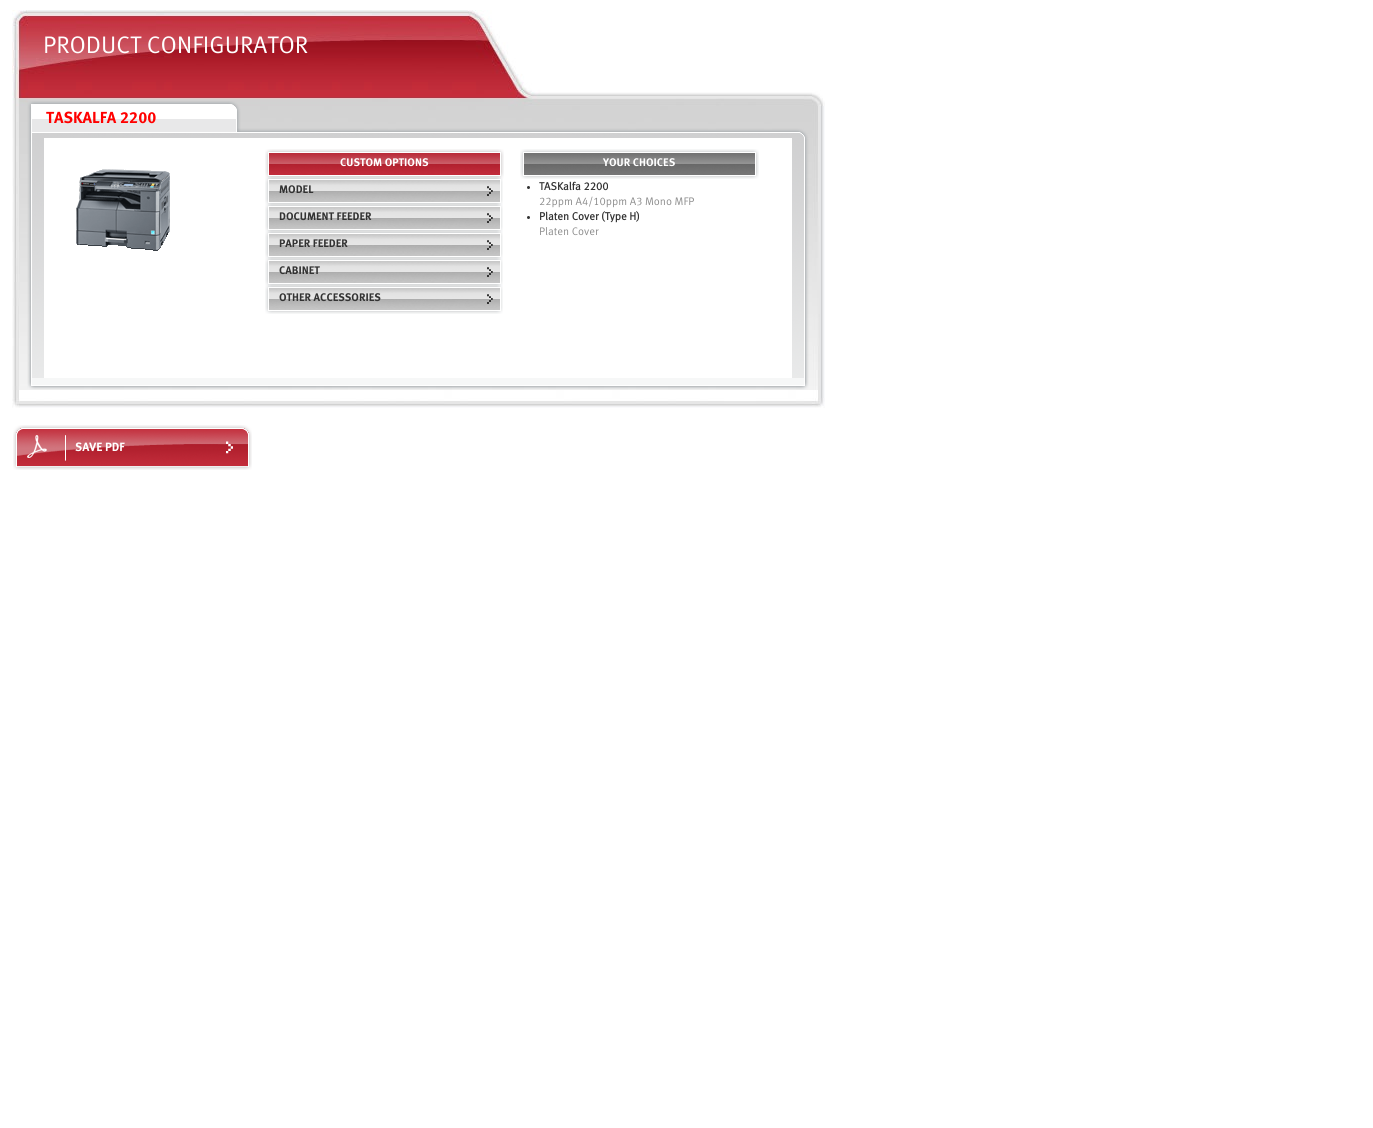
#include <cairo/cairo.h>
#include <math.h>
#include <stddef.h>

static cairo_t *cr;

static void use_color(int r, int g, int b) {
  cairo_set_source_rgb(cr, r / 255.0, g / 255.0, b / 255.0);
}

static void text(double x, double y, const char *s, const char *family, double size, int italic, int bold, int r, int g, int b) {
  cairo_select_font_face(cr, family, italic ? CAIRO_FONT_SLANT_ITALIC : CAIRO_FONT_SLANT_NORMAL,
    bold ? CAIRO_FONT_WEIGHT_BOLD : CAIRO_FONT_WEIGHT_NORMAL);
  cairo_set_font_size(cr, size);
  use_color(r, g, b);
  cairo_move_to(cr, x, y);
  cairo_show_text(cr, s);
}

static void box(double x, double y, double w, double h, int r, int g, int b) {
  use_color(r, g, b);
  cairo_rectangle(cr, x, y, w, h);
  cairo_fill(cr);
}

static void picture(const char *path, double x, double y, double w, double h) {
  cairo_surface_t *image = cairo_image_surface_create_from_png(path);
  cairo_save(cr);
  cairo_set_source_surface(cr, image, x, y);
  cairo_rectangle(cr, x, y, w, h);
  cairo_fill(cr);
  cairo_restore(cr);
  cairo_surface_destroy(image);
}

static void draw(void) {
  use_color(255, 255, 255);
  cairo_paint(cr);
  picture("img_01.png", 12, 10, 813, 380);
  picture("img_02.png", 27, 101, 782, 277);
  box(44, 138, 748, 240, 255, 255, 255);
  picture("img_04.png", 76, 175, 94, 76);
  picture("img_03.png", 80, 169, 90, 13);
  picture("img_05.png", 265, 149, 239, 30);
  picture("img_06.png", 265, 176, 238, 30);
  picture("img_07.png", 487, 186, 6, 10);
  picture("img_08.png", 265, 203, 238, 30);
  picture("img_07.png", 487, 213, 6, 10);
  picture("img_08.png", 265, 230, 238, 30);
  picture("img_07.png", 487, 240, 6, 10);
  picture("img_08.png", 265, 257, 238, 30);
  picture("img_07.png", 487, 267, 6, 10);
  picture("img_08.png", 265, 284, 238, 30);
  picture("img_07.png", 487, 294, 6, 10);
  picture("img_09.png", 520, 149, 239, 30);
  use_color(51, 51, 51);
  cairo_arc(cr, 528.5, 187.5, 1.5, 0, 2 * M_PI);
  cairo_fill(cr);
  cairo_arc(cr, 528.5, 217.5, 1.5, 0, 2 * M_PI);
  cairo_fill(cr);
  picture("img_10.png", 27, 378, 782, 12);
  picture("img_11.png", 12, 390, 813, 18);
  picture("img_12.png", 13, 425, 239, 45);
  picture("img_13.png", 27, 435, 20, 23);
  text(43, 53, "PRODUCT CONFIGURATOR", "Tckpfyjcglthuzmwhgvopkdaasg", 24, 0, 0, 255, 255, 255);
  text(46, 123, "TASKALFA 2200", "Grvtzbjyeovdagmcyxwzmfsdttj", 16, 0, 1, 255, 0, 0);
  text(340, 166, "CUSTOM OPTIONS", "Grvtzbjyeovdagmcyxwzmfsdttj", 11, 0, 1, 255, 255, 255);
  text(279, 193, "MODEL", "Grvtzbjyeovdagmcyxwzmfsdttj", 11, 0, 1, 51, 51, 51);
  text(279, 220, "DOCUMENT FEEDER", "Grvtzbjyeovdagmcyxwzmfsdttj", 11, 0, 1, 51, 51, 51);
  text(279, 247, "PAPER FEEDER", "Grvtzbjyeovdagmcyxwzmfsdttj", 11, 0, 1, 51, 51, 51);
  text(279, 274, "CABINET", "Grvtzbjyeovdagmcyxwzmfsdttj", 11, 0, 1, 51, 51, 51);
  text(279, 301, "OTHER ACCESSORIES", "Grvtzbjyeovdagmcyxwzmfsdttj", 11, 0, 1, 51, 51, 51);
  text(603, 166, "YOUR CHOICES", "Grvtzbjyeovdagmcyxwzmfsdttj", 11, 0, 1, 255, 255, 255);
  text(539, 190, "TASKalfa 2200", "Tckpfyjcglthuzmwhgvopkdaasg", 11, 0, 1, 51, 51, 51);
  text(539, 205, "22ppm A4/10ppm A3 Mono MFP", "Tckpfyjcglthuzmwhgvopkdaasg", 11, 0, 0, 141, 141, 141);
  text(539, 220, "Platen Cover (Type H)", "Tckpfyjcglthuzmwhgvopkdaasg", 11, 0, 1, 51, 51, 51);
  text(539, 235, "Platen Cover", "Tckpfyjcglthuzmwhgvopkdaasg", 11, 0, 0, 141, 141, 141);
  text(75, 451, "SAVE PDF", "Grvtzbjyeovdagmcyxwzmfsdttj", 12, 0, 1, 255, 255, 255);
}

int main(void) {
  cairo_surface_t *surface = cairo_image_surface_create(CAIRO_FORMAT_RGB24, 1373, 1128);
  cr = cairo_create(surface);
  cairo_font_options_t *options = cairo_font_options_create();
  cairo_font_options_set_hint_metrics(options, CAIRO_HINT_METRICS_OFF);
  cairo_font_options_set_hint_style(options, CAIRO_HINT_STYLE_NONE);
  cairo_set_font_options(cr, options);
  cairo_set_miter_limit(cr, 4);
  draw();
  cairo_surface_write_to_png(surface, "out.png");
  cairo_font_options_destroy(options);
  cairo_destroy(cr);
  cairo_surface_destroy(surface);
  return 0;
}
